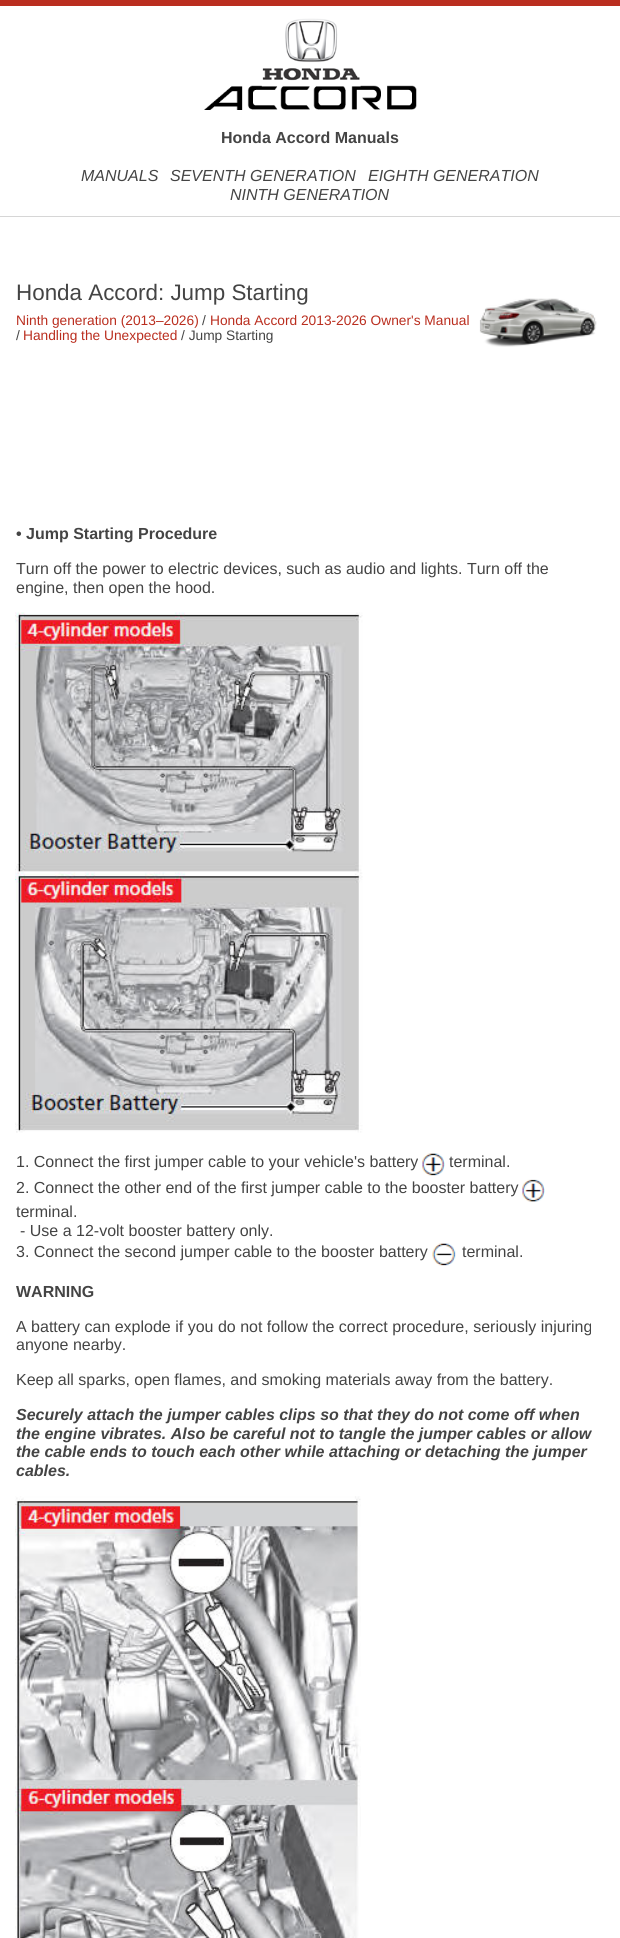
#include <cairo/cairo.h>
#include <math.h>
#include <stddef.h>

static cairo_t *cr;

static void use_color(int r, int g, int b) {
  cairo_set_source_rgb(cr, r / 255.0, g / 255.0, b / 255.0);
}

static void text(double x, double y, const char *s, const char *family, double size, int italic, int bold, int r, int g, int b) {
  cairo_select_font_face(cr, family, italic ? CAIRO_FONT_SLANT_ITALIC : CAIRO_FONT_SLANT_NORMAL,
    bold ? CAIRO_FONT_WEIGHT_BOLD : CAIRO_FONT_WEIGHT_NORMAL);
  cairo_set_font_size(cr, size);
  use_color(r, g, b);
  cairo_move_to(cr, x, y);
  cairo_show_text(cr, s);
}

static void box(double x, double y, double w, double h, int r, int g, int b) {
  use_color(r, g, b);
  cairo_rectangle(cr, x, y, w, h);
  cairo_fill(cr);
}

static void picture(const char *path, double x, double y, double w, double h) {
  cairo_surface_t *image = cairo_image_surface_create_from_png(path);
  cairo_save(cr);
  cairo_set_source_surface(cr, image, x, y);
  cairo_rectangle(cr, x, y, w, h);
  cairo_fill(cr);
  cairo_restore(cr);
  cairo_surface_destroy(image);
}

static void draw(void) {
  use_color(255, 255, 255);
  cairo_paint(cr);
  box(0, 0, 620, 6, 186, 46, 31);
  box(0, 216, 620, 1, 214, 214, 214);
  picture("img_01.png", 204, 18, 213, 92);
  picture("img_02.png", 479, 298, 118, 49);
  picture("img_03.png", 15, 612, 348, 521);
  picture("img_04.png", 422, 1153, 23, 23);
  picture("img_05.png", 522, 1179, 23, 23);
  picture("img_06.png", 432, 1243, 24, 23);
  picture("img_07.png", 15, 1496, 346, 442);
  text(221, 143, "Honda Accord Manuals", "Liberation Sans", 16, 0, 1, 68, 68, 68);
  text(81, 181, "MANUALS", "Liberation Sans", 16, 1, 0, 68, 68, 68);
  text(170, 181, "SEVENTH GENERATION", "Liberation Sans", 16, 1, 0, 68, 68, 68);
  text(368, 181, "EIGHTH GENERATION", "Liberation Sans", 16, 1, 0, 68, 68, 68);
  text(230, 200, "NINTH GENERATION", "Liberation Sans", 16, 1, 0, 68, 68, 68);
  text(16, 300, "Honda Accord: Jump Starting", "Liberation Sans", 22.4, 0, 0, 68, 68, 68);
  text(16, 325, "Ninth generation (2013–2026)", "Liberation Sans", 13.75, 0, 0, 186, 46, 31);
  text(202, 325, "/", "Liberation Sans", 13.75, 0, 0, 68, 68, 68);
  text(210, 325, "Honda Accord 2013-2026 Owner's Manual", "Liberation Sans", 13.75, 0, 0, 186, 46, 31);
  text(16, 340, "/", "Liberation Sans", 13.75, 0, 0, 68, 68, 68);
  text(23, 340, "Handling the Unexpected", "Liberation Sans", 13.75, 0, 0, 186, 46, 31);
  text(181, 340, "/ Jump Starting", "Liberation Sans", 13.75, 0, 0, 68, 68, 68);
  text(16, 539, "• Jump Starting Procedure", "Liberation Sans", 16, 0, 1, 68, 68, 68);
  text(16, 574, "Turn off the power to electric devices, such as audio and lights. Turn off the", "Liberation Sans", 16, 0, 0, 68, 68, 68);
  text(16, 593, "engine, then open the hood.", "Liberation Sans", 16, 0, 0, 68, 68, 68);
  text(16, 1167, "1. Connect the first jumper cable to your vehicle's battery", "Liberation Sans", 16, 0, 0, 68, 68, 68);
  text(449, 1167, "terminal.", "Liberation Sans", 16, 0, 0, 68, 68, 68);
  text(16, 1193, "2. Connect the other end of the first jumper cable to the booster battery", "Liberation Sans", 16, 0, 0, 68, 68, 68);
  text(16, 1217, "terminal.", "Liberation Sans", 16, 0, 0, 68, 68, 68);
  text(20, 1236, "- Use a 12-volt booster battery only.", "Liberation Sans", 16, 0, 0, 68, 68, 68);
  text(16, 1257, "3. Connect the second jumper cable to the booster battery", "Liberation Sans", 16, 0, 0, 68, 68, 68);
  text(462, 1257, "terminal.", "Liberation Sans", 16, 0, 0, 68, 68, 68);
  text(16, 1297, "WARNING", "Liberation Sans", 16, 0, 1, 68, 68, 68);
  text(16, 1332, "A battery can explode if you do not follow the correct procedure, seriously injuring", "Liberation Sans", 16, 0, 0, 68, 68, 68);
  text(16, 1350, "anyone nearby.", "Liberation Sans", 16, 0, 0, 68, 68, 68);
  text(16, 1385, "Keep all sparks, open flames, and smoking materials away from the battery.", "Liberation Sans", 16, 0, 0, 68, 68, 68);
  text(16, 1420, "Securely attach the jumper cables clips so that they do not come off when", "Liberation Sans", 16, 1, 1, 68, 68, 68);
  text(16, 1439, "the engine vibrates. Also be careful not to tangle the jumper cables or allow", "Liberation Sans", 16, 1, 1, 68, 68, 68);
  text(16, 1457, "the cable ends to touch each other while attaching or detaching the jumper", "Liberation Sans", 16, 1, 1, 68, 68, 68);
  text(16, 1476, "cables.", "Liberation Sans", 16, 1, 1, 68, 68, 68);
}

int main(void) {
  cairo_surface_t *surface = cairo_image_surface_create(CAIRO_FORMAT_RGB24, 620, 1938);
  cr = cairo_create(surface);
  cairo_font_options_t *options = cairo_font_options_create();
  cairo_font_options_set_hint_metrics(options, CAIRO_HINT_METRICS_OFF);
  cairo_font_options_set_hint_style(options, CAIRO_HINT_STYLE_NONE);
  cairo_set_font_options(cr, options);
  cairo_set_miter_limit(cr, 4);
  draw();
  cairo_surface_write_to_png(surface, "out.png");
  cairo_font_options_destroy(options);
  cairo_destroy(cr);
  cairo_surface_destroy(surface);
  return 0;
}
